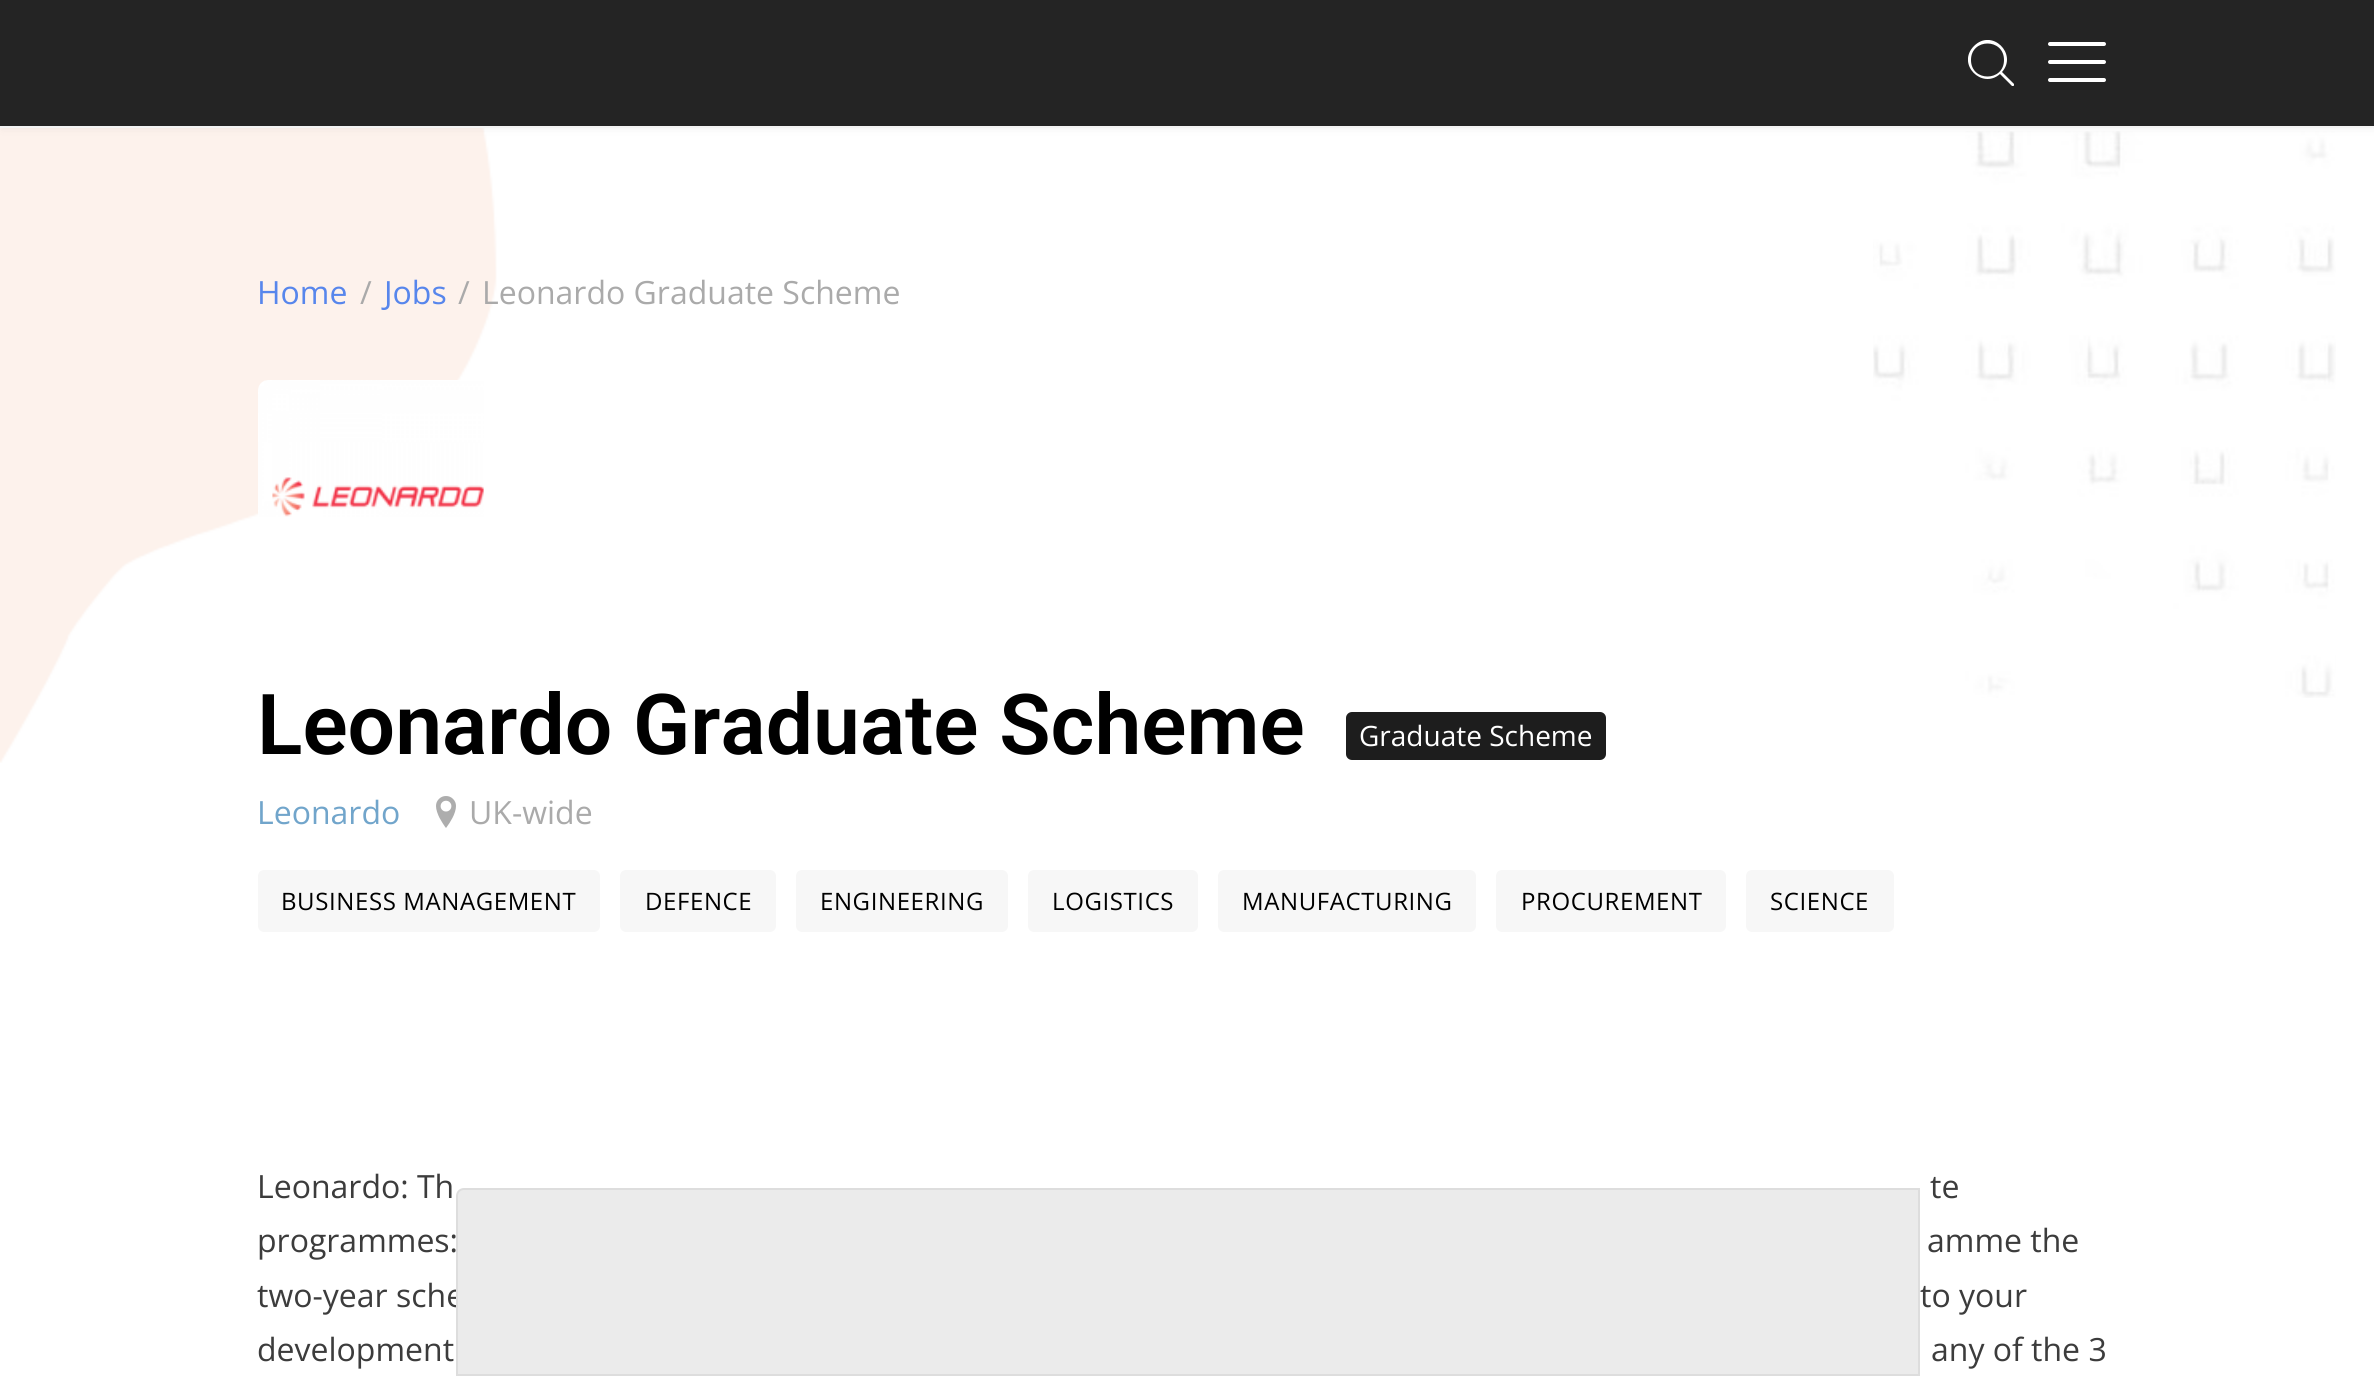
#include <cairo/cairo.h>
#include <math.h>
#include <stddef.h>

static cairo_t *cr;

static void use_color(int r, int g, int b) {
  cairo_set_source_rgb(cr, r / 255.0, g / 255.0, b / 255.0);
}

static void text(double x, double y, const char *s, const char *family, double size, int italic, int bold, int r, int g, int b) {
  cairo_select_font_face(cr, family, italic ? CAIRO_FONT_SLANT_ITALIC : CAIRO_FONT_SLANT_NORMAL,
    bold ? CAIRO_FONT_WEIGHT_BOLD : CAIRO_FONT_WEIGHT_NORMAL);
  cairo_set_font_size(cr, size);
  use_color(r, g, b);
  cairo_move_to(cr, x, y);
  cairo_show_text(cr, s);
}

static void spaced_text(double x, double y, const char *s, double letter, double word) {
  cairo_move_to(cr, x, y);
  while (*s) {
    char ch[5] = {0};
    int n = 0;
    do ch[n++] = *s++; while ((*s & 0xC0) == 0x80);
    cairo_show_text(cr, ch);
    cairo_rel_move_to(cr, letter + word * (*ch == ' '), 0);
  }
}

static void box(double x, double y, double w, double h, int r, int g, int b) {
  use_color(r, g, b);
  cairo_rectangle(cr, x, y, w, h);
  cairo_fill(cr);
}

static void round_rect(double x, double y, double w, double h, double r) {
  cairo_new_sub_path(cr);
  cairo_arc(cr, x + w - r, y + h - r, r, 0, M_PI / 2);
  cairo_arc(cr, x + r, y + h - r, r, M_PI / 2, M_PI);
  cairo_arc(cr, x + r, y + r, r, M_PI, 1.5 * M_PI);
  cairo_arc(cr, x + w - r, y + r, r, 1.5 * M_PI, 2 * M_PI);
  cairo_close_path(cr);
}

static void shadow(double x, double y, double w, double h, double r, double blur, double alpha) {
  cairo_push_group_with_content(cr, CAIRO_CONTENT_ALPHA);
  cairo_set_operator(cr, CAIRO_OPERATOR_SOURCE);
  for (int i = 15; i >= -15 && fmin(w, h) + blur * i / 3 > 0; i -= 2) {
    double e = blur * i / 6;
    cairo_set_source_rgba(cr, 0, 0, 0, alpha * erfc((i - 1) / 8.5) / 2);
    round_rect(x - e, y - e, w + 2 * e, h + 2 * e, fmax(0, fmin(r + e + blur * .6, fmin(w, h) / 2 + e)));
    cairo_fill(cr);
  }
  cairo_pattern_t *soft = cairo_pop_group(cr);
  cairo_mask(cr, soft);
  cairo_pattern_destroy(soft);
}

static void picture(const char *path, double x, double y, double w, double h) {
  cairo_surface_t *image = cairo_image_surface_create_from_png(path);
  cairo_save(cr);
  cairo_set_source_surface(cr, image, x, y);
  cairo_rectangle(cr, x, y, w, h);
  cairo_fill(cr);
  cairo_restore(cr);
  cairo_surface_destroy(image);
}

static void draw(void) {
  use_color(255, 255, 255);
  cairo_paint(cr);
  picture("img_01.png", 0, 128, 497, 635);
  picture("img_02.png", 1873, 131, 463, 567);
  use_color(102, 102, 102);
  shadow(2, 2, 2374, 128, 0, 4, 0.07);
  box(0, 0, 2374, 126, 36, 36, 36);
  box(0, 126, 2374, 2, 243, 243, 243);
  cairo_save(cr);
  cairo_rectangle(cr, 1968, 40, 46, 46);
  cairo_clip(cr);
  use_color(255, 255, 255);
  cairo_new_path(cr);
  cairo_move_to(cr, 2014, 84);
  cairo_line_to(cr, 2002, 72);
  cairo_curve_to(cr, 2018, 54, 1992, 28, 1974, 46);
  cairo_curve_to(cr, 1956, 64, 1982, 90, 2000, 74);
  cairo_line_to(cr, 2012, 86);
  cairo_curve_to(cr, 2013, 87, 2015, 85, 2014, 84);
  cairo_close_path(cr);
  cairo_move_to(cr, 1971, 60);
  cairo_curve_to(cr, 1971, 38, 2004, 38, 2004, 60);
  cairo_curve_to(cr, 2004, 82, 1971, 82, 1971, 60);
  cairo_close_path(cr);
  cairo_fill(cr);
  cairo_restore(cr);
  use_color(255, 255, 255);
  round_rect(2048, 42, 58, 4, 2);
  cairo_fill(cr);
  round_rect(2048, 60, 58, 4, 2);
  cairo_fill(cr);
  round_rect(2048, 78, 58, 4, 2);
  cairo_fill(cr);
  picture("img_03.png", 258, 380, 226, 137);
  use_color(29, 29, 29);
  round_rect(1346, 712, 260, 48, 6);
  cairo_fill(cr);
  picture("img_04.png", 436, 796, 20, 32);
  use_color(247, 247, 247);
  round_rect(258, 870, 342, 62, 6);
  cairo_fill(cr);
  round_rect(620, 870, 156, 62, 6);
  cairo_fill(cr);
  round_rect(796, 870, 212, 62, 6);
  cairo_fill(cr);
  round_rect(1028, 870, 170, 62, 6);
  cairo_fill(cr);
  round_rect(1218, 870, 258, 62, 6);
  cairo_fill(cr);
  round_rect(1496, 870, 230, 62, 6);
  cairo_fill(cr);
  round_rect(1746, 870, 148, 62, 6);
  cairo_fill(cr);
  text(257, 304, "Home", "Open Sans", 32, 0, 0, 87, 134, 236);
  text(360, 304, "/", "Open Sans", 32, 0, 0, 170, 170, 170);
  text(384, 304, "Jobs", "Open Sans", 32, 0, 0, 87, 134, 236);
  text(458, 304, "/", "Open Sans", 32, 0, 0, 170, 170, 170);
  text(482, 304, "Leonardo Graduate Scheme", "Open Sans", 32, 0, 0, 170, 170, 170);
  text(257, 754, "Leonardo Graduate Scheme", "Roboto SemiBold", 84, 0, 0, 0, 0, 0);
  text(1359, 746, "Graduate Scheme", "Open Sans", 28, 0, 0, 255, 255, 255);
  text(257, 824, "Leonardo", "Open Sans", 32, 0, 0, 113, 165, 203);
  text(469, 824, "UK-wide", "Open Sans", 32, 0, 0, 170, 170, 170);
  cairo_set_font_size(cr, 24);
  use_color(0, 0, 0);
  spaced_text(281, 910, "BUSINESS MANAGEMENT", 0.6, 0);
  spaced_text(645, 910, "DEFENCE", 0.6, 0);
  spaced_text(820, 910, "ENGINEERING", 0.6, 0);
  spaced_text(1052, 910, "LOGISTICS", 0.6, 0);
  spaced_text(1242, 910, "MANUFACTURING", 0.6, 0);
  spaced_text(1521, 910, "PROCUREMENT", 0.6, 0);
  spaced_text(1770, 910, "SCIENCE", 0.6, 0);
  text(257, 1198, "Leonardo: Th", "Open Sans", 32, 0, 0, 60, 60, 60);
  text(1930, 1198, "te", "Open Sans", 32, 0, 0, 60, 60, 60);
  text(257, 1252, "programmes:", "Open Sans", 32, 0, 0, 60, 60, 60);
  text(1927, 1252, "amme the", "Open Sans", 32, 0, 0, 60, 60, 60);
  text(257, 1307, "two-year sche", "Open Sans", 32, 0, 0, 60, 60, 60);
  text(1920, 1307, "to your", "Open Sans", 32, 0, 0, 60, 60, 60);
  text(257, 1361, "development", "Open Sans", 32, 0, 0, 60, 60, 60);
  text(1931, 1361, "any of the 3", "Open Sans", 32, 0, 0, 60, 60, 60);
  use_color(235, 235, 235);
  cairo_new_path(cr);
  cairo_move_to(cr, 464, 1189);
  cairo_line_to(cr, 1919, 1189);
  cairo_line_to(cr, 1919, 1375);
  cairo_line_to(cr, 457, 1375);
  cairo_line_to(cr, 457, 1196);
  cairo_curve_to(cr, 457, 1192, 460, 1189, 464, 1189);
  cairo_close_path(cr);
  cairo_fill_preserve(cr);
  use_color(221, 221, 221);
  cairo_stroke(cr);
}

int main(void) {
  cairo_surface_t *surface = cairo_image_surface_create(CAIRO_FORMAT_RGB24, 2374, 1376);
  cr = cairo_create(surface);
  cairo_font_options_t *options = cairo_font_options_create();
  cairo_font_options_set_hint_metrics(options, CAIRO_HINT_METRICS_OFF);
  cairo_font_options_set_hint_style(options, CAIRO_HINT_STYLE_NONE);
  cairo_set_font_options(cr, options);
  cairo_set_miter_limit(cr, 4);
  draw();
  cairo_surface_write_to_png(surface, "out.png");
  cairo_font_options_destroy(options);
  cairo_destroy(cr);
  cairo_surface_destroy(surface);
  return 0;
}
